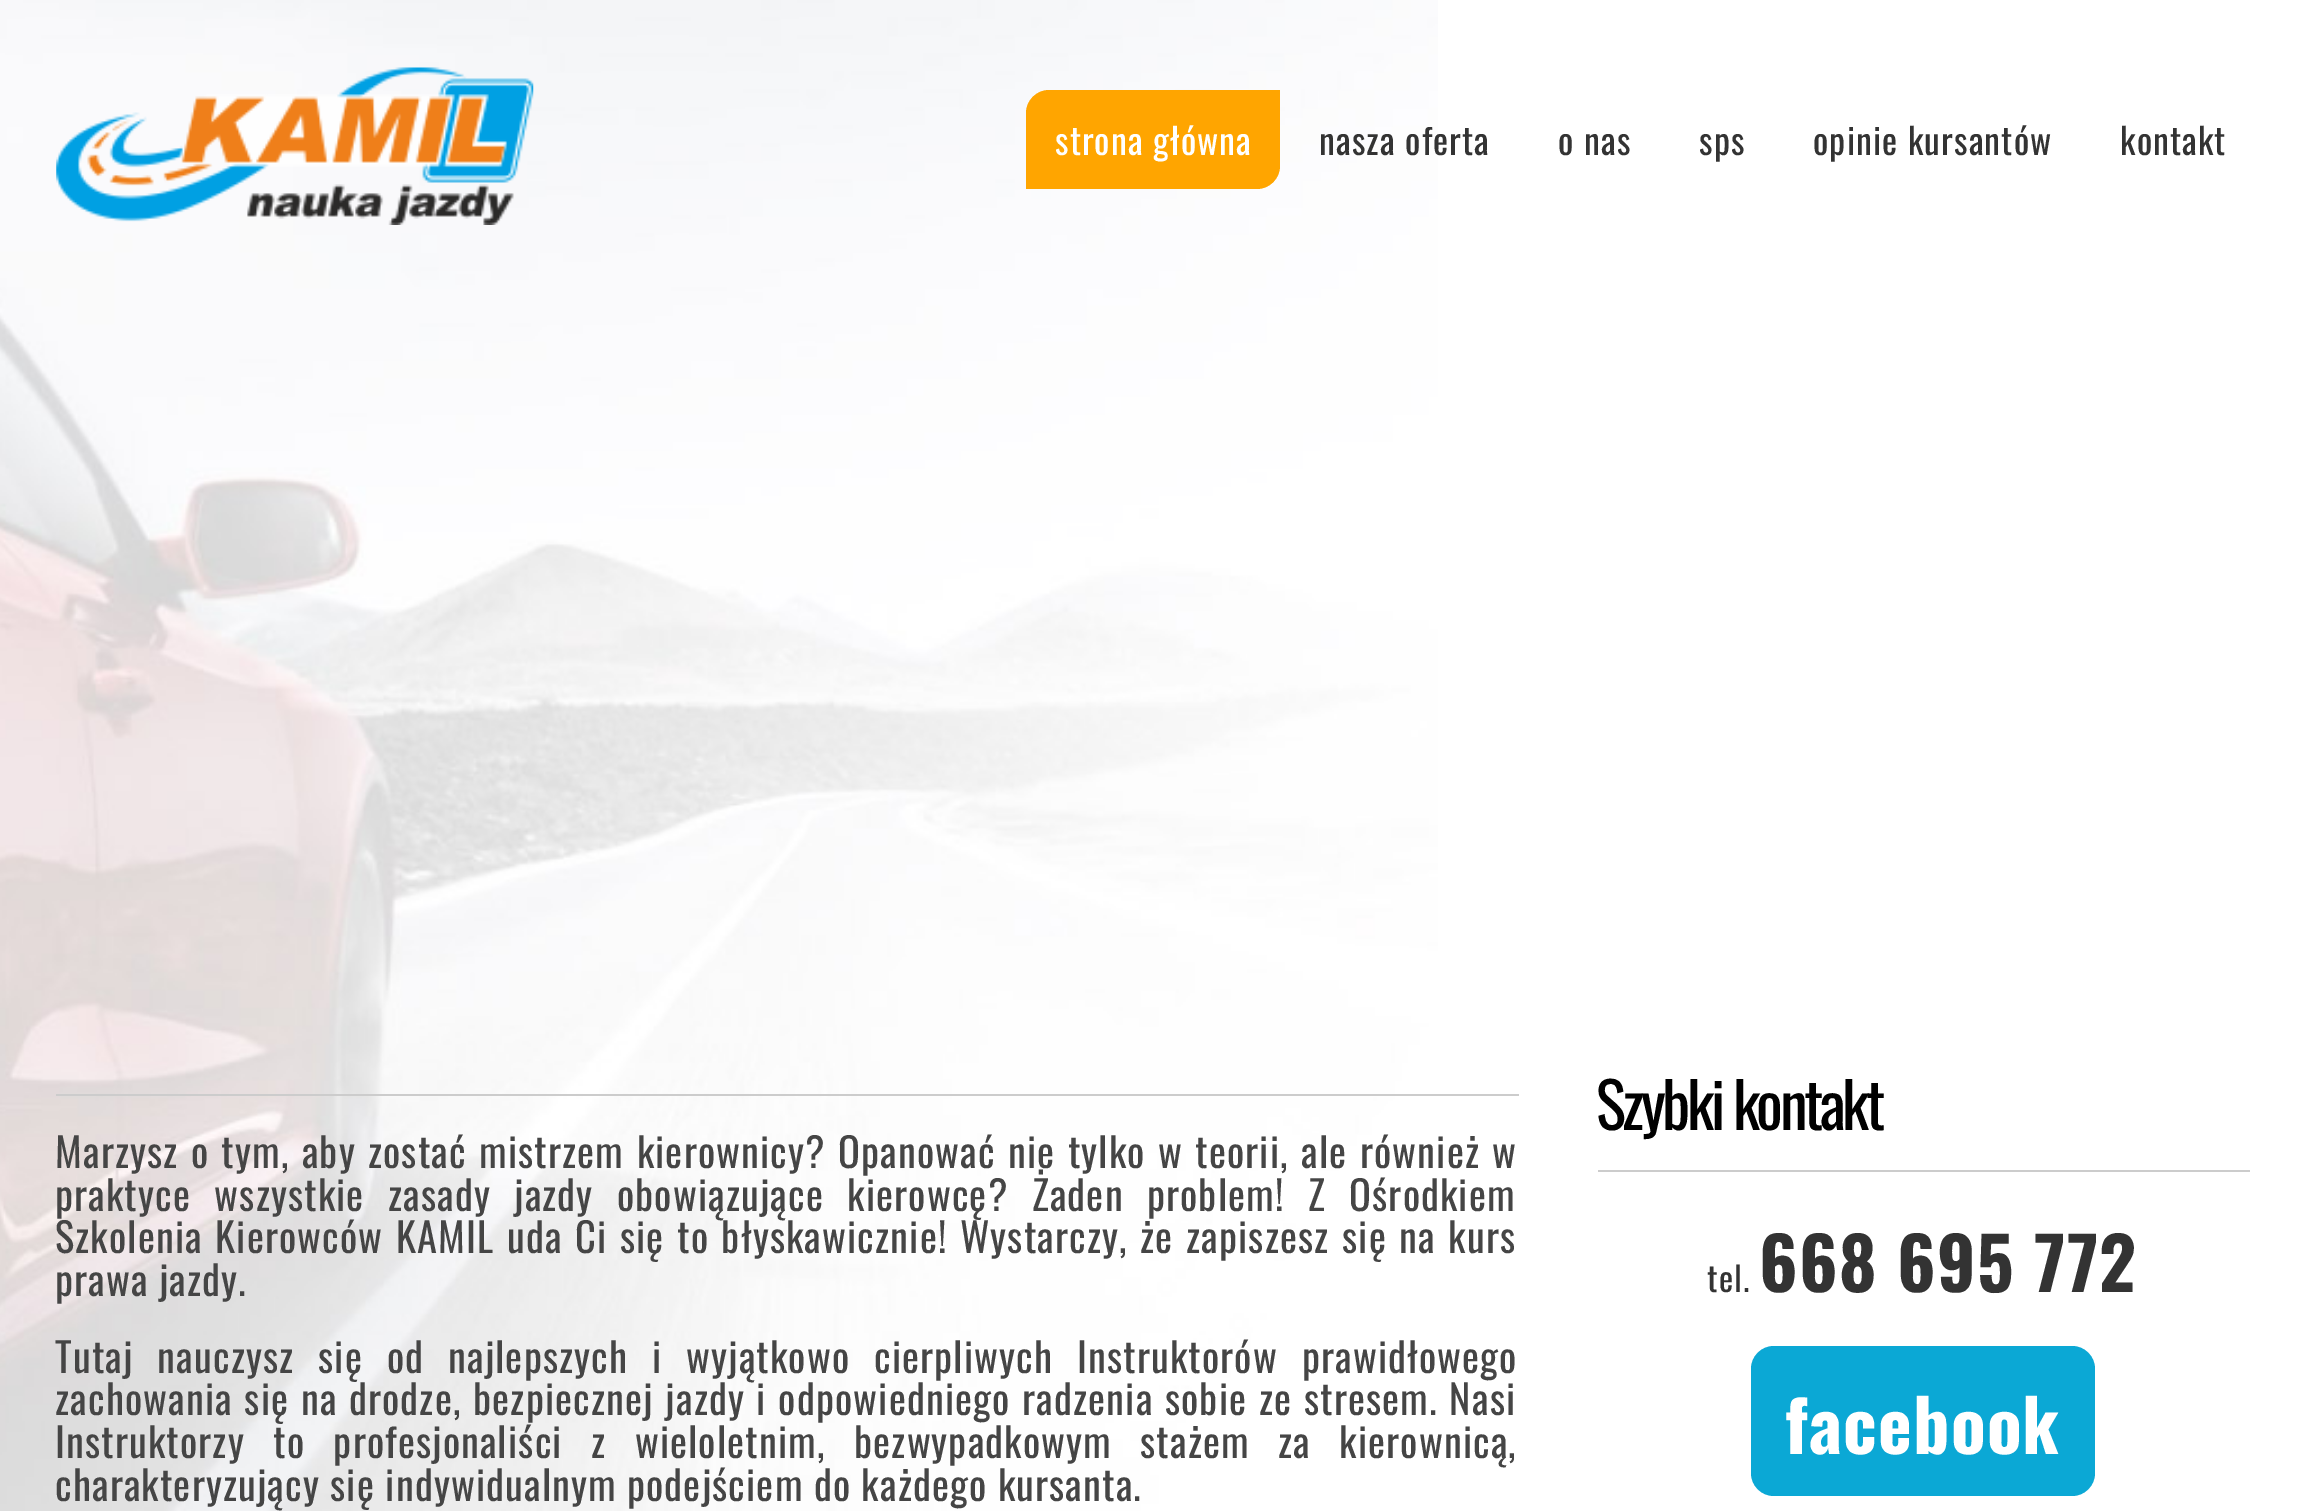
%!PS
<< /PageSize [2314 1511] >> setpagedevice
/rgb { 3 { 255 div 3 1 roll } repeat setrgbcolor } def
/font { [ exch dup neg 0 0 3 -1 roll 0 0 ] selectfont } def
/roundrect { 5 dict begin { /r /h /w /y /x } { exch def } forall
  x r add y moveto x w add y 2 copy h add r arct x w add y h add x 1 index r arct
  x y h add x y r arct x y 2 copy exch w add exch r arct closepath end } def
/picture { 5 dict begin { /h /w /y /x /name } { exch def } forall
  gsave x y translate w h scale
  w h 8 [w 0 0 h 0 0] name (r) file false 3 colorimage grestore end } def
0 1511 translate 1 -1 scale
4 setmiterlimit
255 255 255 rgb
0 0 2314 1511 rectfill
(img_01.rgb) 0 0 1438 1511 picture
(img_02.rgb) 56 67 478 158 picture
255 165 0 rgb
1049 90 moveto 231 0 rlineto 0 76 rlineto 0 12.5 -10.5 23 -23 23 rcurveto -231 0 rlineto 0 -76 rlineto 0 -12.5 10.5 -23 23 -23 rcurveto closepath fill
204 204 204 rgb
56 1094 1463 2 rectfill
1598 1170 652 2 rectfill
11 168 213 rgb
1751 1346 344 150 23 roundrect fill
/Oswald-Regular 36 font
255 255 255 rgb
1055 155 moveto 1.12 0 (strona główna) ashow
51 51 51 rgb
1319 155 moveto 1.12 0 (nasza oferta) ashow
1558 155 moveto 1.12 0 (o nas) ashow
1699 155 moveto 1.12 0 (sps) ashow
1813 155 moveto 1.12 0 (opinie kursantów) ashow
2120 155 moveto 1.12 0 (kontakt) ashow
/Oswald-Regular 40.5 font
69 69 69 rgb
55 1168 moveto 2 0 32 1.12 0 (Marzysz o tym, aby zostać mistrzem kierownicy? Opanować nie tylko w teorii, ale również w) awidthshow
55 1211 moveto 13 0 32 1.12 0 (praktyce wszystkie zasady jazdy obowiązujące kierowcę? Żaden problem! Z Ośrodkiem) awidthshow
55 1253 moveto 2.1 0 32 1.12 0 (Szkolenia Kierowców KAMIL uda Ci się to błyskawicznie! Wystarczy, że zapiszesz się na kurs) awidthshow
55 1296 moveto 1.12 0 (prawa jazdy.) ashow
55 1373 moveto 13.5 0 32 1.12 0 (Tutaj nauczysz się od najlepszych i wyjątkowo cierpliwych Instruktorów prawidłowego) awidthshow
55 1415 moveto 1.25 0 32 1.12 0 (zachowania się na drodze, bezpiecznej jazdy i odpowiedniego radzenia sobie ze stresem. Nasi) awidthshow
55 1458 moveto 18 0 32 1.12 0 (Instruktorzy to profesjonaliści z wieloletnim, bezwypadkowym stażem za kierownicą,) awidthshow
55 1501 moveto 1.12 0 (charakteryzujący się indywidualnym podejściem do każdego kursanta.) ashow
/Oswald-Regular 63 font
0 0 0 rgb
1596 1130 moveto -3.4 0 (Szybki kontakt) ashow
/Oswald-Regular 34 font
51 51 51 rgb
1707 1292 moveto 1.12 0 (tel.) ashow
/Oswald-Bold 72 font
1759 1292 moveto 1.12 0 (668 695 772) ashow
255 255 255 rgb
1785 1454 moveto 1.12 0 (facebook) ashow
showpage
